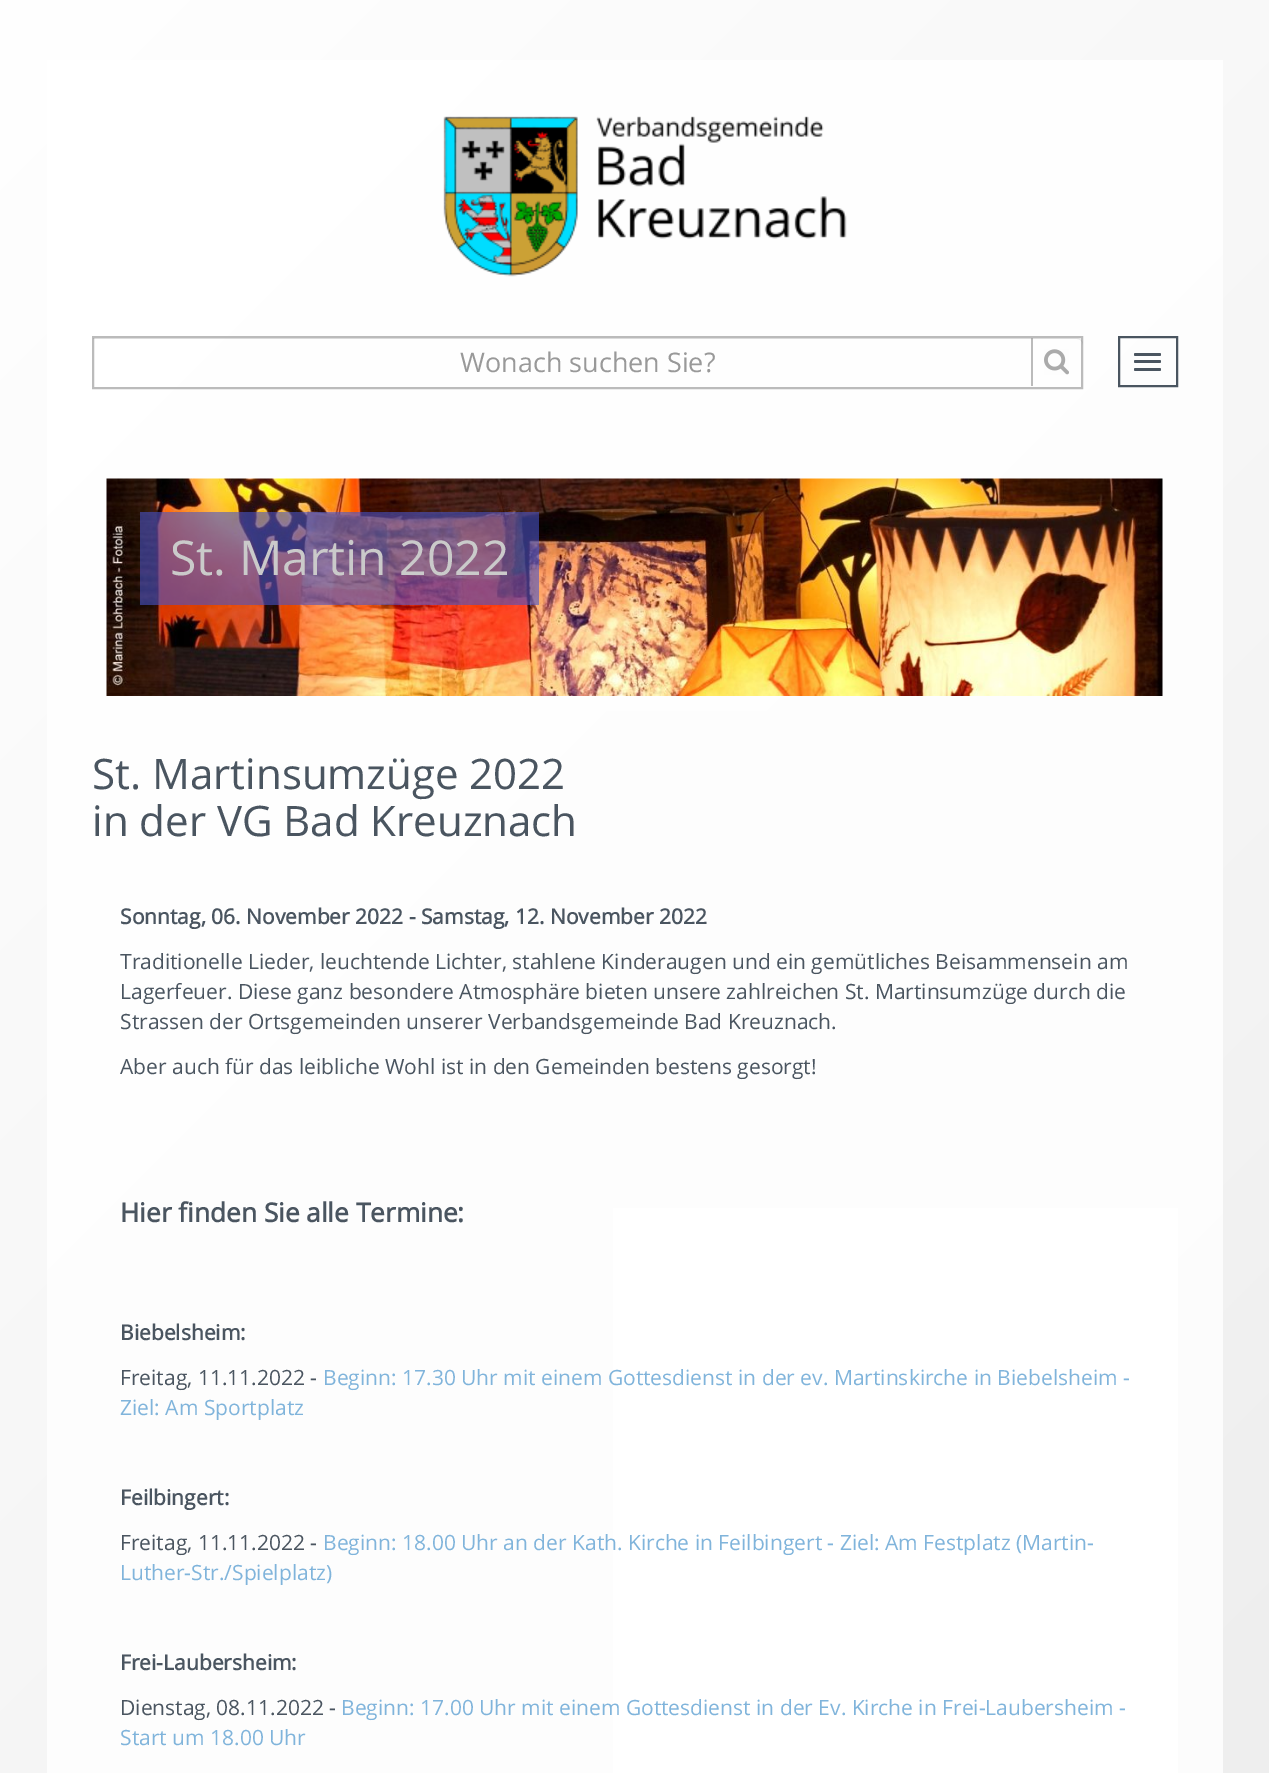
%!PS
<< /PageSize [1269 1773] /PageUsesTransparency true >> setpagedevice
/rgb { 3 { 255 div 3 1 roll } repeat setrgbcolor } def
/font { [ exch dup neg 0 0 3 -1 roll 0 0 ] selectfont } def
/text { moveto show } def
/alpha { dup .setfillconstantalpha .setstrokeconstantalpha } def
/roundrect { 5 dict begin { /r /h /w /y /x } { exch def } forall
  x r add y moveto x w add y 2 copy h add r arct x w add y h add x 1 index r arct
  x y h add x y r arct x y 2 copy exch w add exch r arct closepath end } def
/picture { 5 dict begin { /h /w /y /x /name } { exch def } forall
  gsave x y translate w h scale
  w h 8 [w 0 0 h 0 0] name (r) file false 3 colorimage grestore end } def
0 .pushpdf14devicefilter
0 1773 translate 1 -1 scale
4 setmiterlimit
255 255 255 rgb
0 0 1269 1773 rectfill
gsave 0 0 moveto 1269 0 rlineto 0 1773 rlineto -1269 0 rlineto closepath clip newpath
<< /ShadingType 2 /ColorSpace /DeviceRGB /Coords [-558 558 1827 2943] /Extend [true true] /Function << /FunctionType 2 /Domain [0 1] /C0 [1 1 1] /C1 [0.898 0.898 0.898] /N 1 >> >> shfill grestore
gsave 47 711 moveto 1176 0 rlineto 0 1062 rlineto -1176 0 rlineto closepath clip newpath
<< /ShadingType 2 /ColorSpace /DeviceRGB /Coords [-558 558 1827 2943] /Extend [true true] /Function << /FunctionType 2 /Domain [0 1] /C0 [1 1 1] /C1 [0.98 0.98 0.98] /N 1 >> >> shfill grestore
gsave 47 60 moveto 1176 0 rlineto 0 651 rlineto -1176 0 rlineto closepath clip newpath
<< /ShadingType 2 /ColorSpace /DeviceRGB /Coords [-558 558 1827 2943] /Extend [true true] /Function << /FunctionType 2 /Domain [0 1] /C0 [1 1 1] /C1 [0.98 0.98 0.98] /N 1 >> >> shfill grestore
(img_01.rgb) 443 116 404 161 picture
187 187 187 rgb
2 setlinewidth
93 337 989 51 rectstroke
1031 338 2 48 rectfill
0.07 alpha
0 0 0 rgb
93 339 moveto 984 0 rlineto 3 0 6 3 6 6 rcurveto 0 -1 rlineto 0 -3 -3 -6 -6 -6 rcurveto -984 0 rlineto closepath fill
1 alpha
(img_02.rgb) 1044 349 25 26 picture
74 85 96 rgb
1119 337 58 49 rectstroke
1134 353 27 3 1.5 roundrect fill
1134 360 27 3 1.5 roundrect fill
1134 368 27 3 1.5 roundrect fill
(img_03.rgb) 106 478 1057 218 picture
0.6 alpha
72 83 199 rgb
140 512 399 93 rectfill
1 alpha
255 255 255 rgb
613 1208 565 565 rectfill
/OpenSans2-Regular 27 font
153 153 153 rgb
(Wonach suchen Sie?) 460 372 text
/OpenSans-Regular 48 font
202 202 202 rgb
(St. Martin 2022) 170 575 text
/OpenSans-Regular 42 font
74 85 96 rgb
(St. Martinsumzüge 2022) 92 789 text
(in der VG Bad Kreuznach) 92 836 text
/OpenSans-Bold 21 font
(Sonntag, 06. November 2022 - Samstag, 12. November 2022) 120 924 text
/OpenSans-Regular 21 font
(Traditionelle Lieder, leuchtende Lichter, stahlene Kinderaugen und ein gemütliches Beisammensein am) 120 969 text
(Lagerfeuer. Diese ganz besondere Atmosphäre bieten unsere zahlreichen St. Martinsumzüge durch die) 120 999 text
(Strassen der Ortsgemeinden unserer Verbandsgemeinde Bad Kreuznach.) 120 1029 text
(Aber auch für das leibliche Wohl ist in den Gemeinden bestens gesorgt!) 120 1074 text
/OpenSans-Bold 26.25 font
(Hier finden Sie alle Termine:) 120 1222 text
/OpenSans-Bold 21 font
(Biebelsheim:) 120 1340 text
/OpenSans-Regular 21 font
(Freitag, 11.11.2022 -) 120 1385 text
128 180 219 rgb
(Beginn: 17.30 Uhr mit einem Gottesdienst in der ev. Martinskirche in Biebelsheim -) 323 1385 text
(Ziel: Am Sportplatz) 120 1415 text
/OpenSans-Bold 21 font
74 85 96 rgb
(Feilbingert:) 120 1505 text
/OpenSans-Regular 21 font
(Freitag, 11.11.2022 -) 120 1550 text
128 180 219 rgb
(Beginn: 18.00 Uhr an der Kath. Kirche in Feilbingert - Ziel: Am Festplatz \(Martin-) 323 1550 text
(Luther-Str./Spielplatz\)) 120 1580 text
/OpenSans-Bold 21 font
74 85 96 rgb
(Frei-Laubersheim:) 120 1670 text
/OpenSans-Regular 21 font
(Dienstag, 08.11.2022 -) 120 1715 text
128 180 219 rgb
(Beginn: 17.00 Uhr mit einem Gottesdienst in der Ev. Kirche in Frei-Laubersheim -) 341 1715 text
(Start um 18.00 Uhr) 120 1745 text
.poppdf14devicefilter showpage
